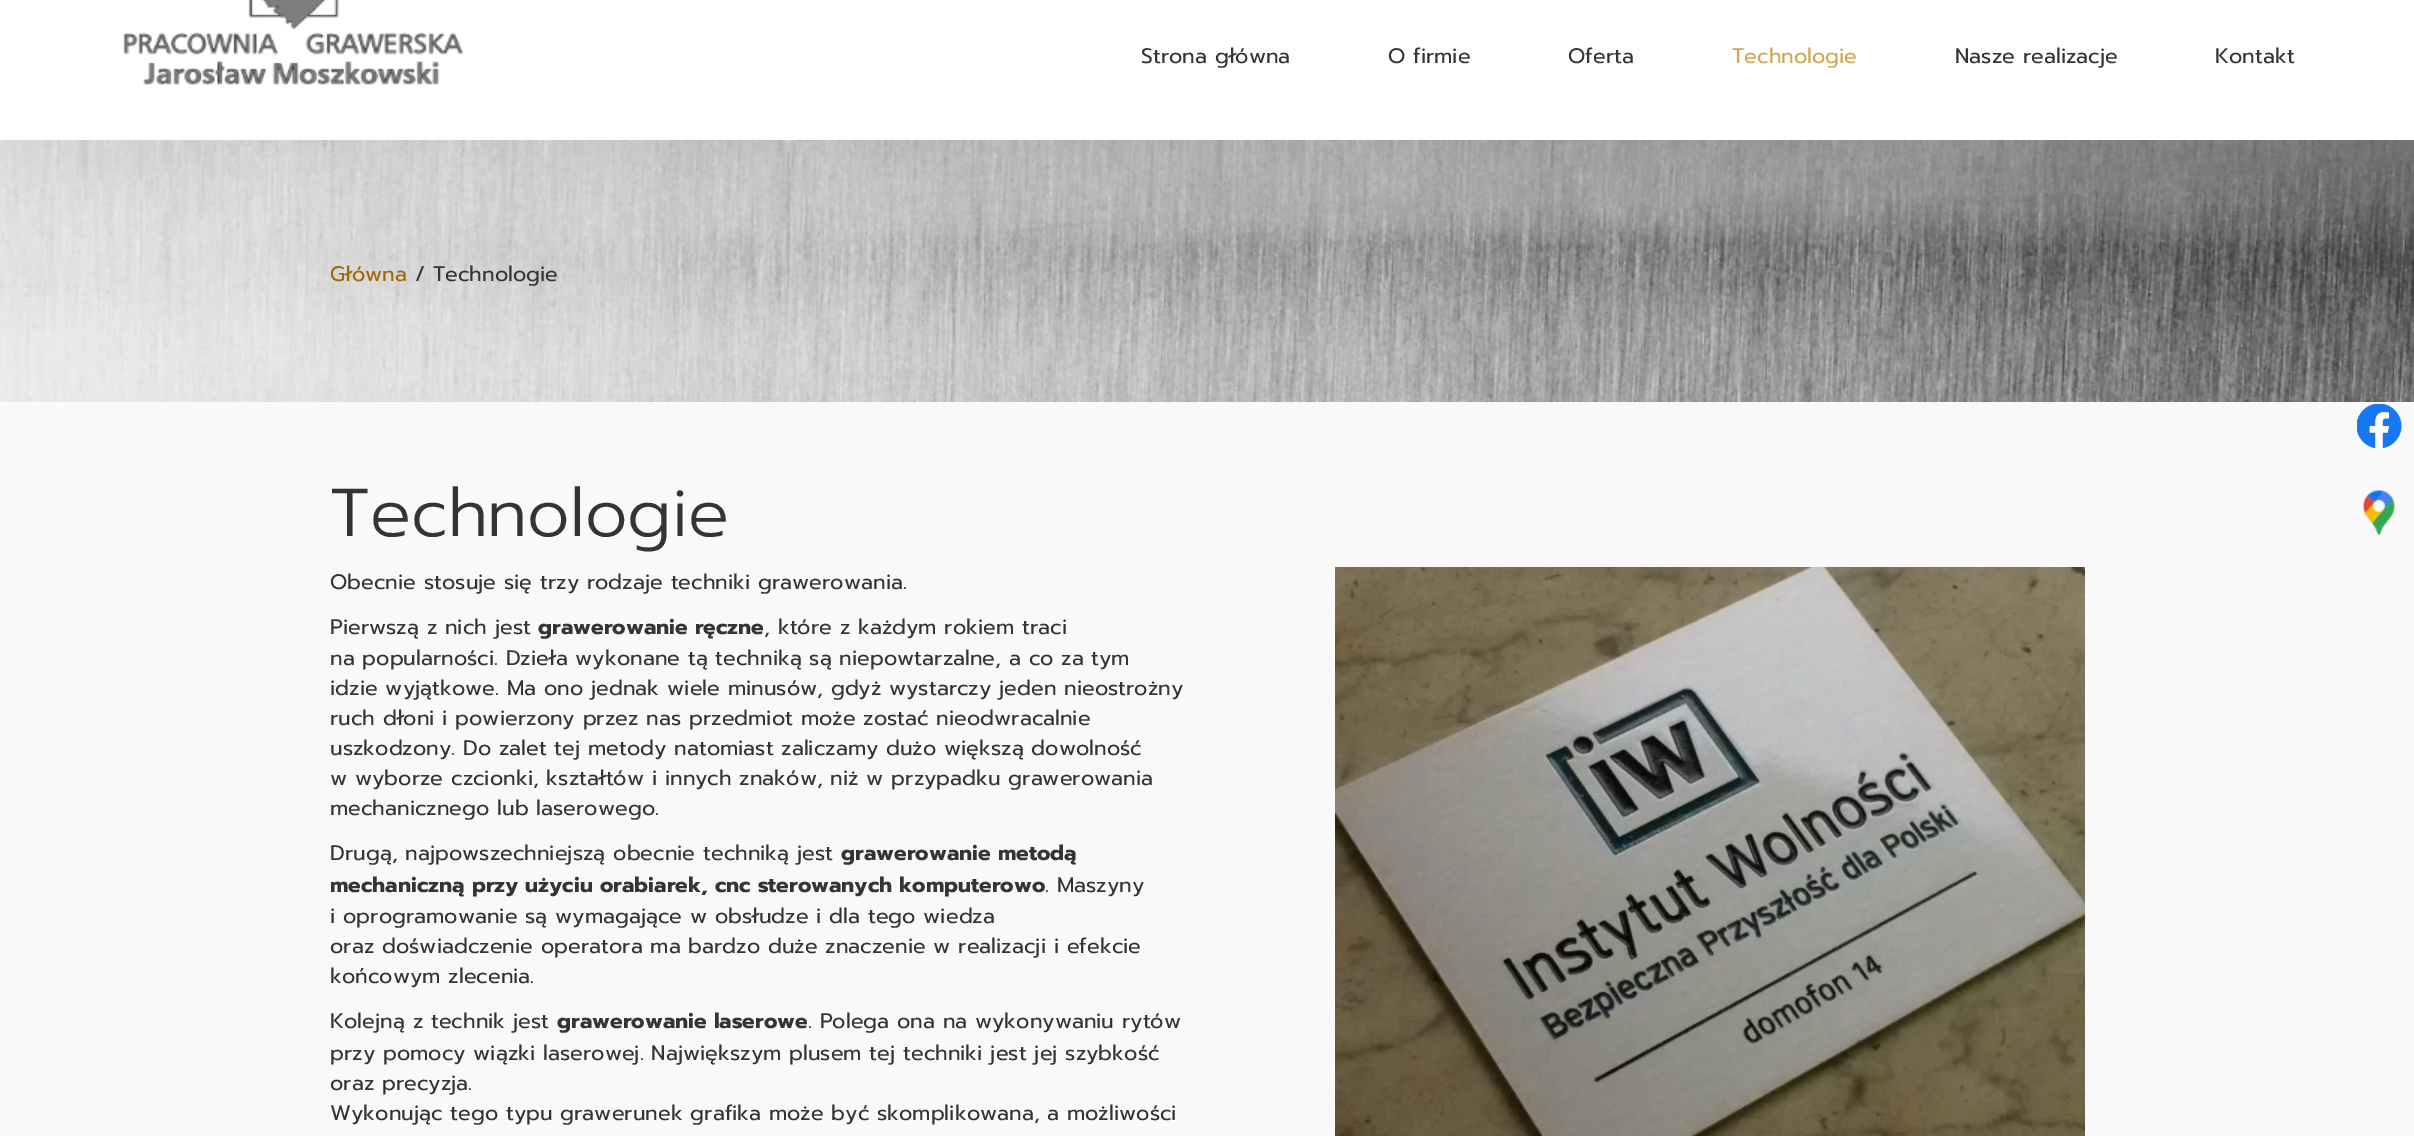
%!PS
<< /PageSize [2414 1136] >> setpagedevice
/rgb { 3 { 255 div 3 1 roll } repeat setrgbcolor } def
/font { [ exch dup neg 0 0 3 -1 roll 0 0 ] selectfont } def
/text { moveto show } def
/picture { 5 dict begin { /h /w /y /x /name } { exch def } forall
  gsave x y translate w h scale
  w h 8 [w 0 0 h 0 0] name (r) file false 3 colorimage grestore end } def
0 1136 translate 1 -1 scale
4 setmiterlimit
249 249 249 rgb
0 0 2414 1136 rectfill
255 255 255 rgb
0 0 2414 140 rectfill
(img_01.rgb) 123 0 341 86 picture
(img_02.rgb) 0 140 2414 262 picture
(img_03.rgb) 2357 404 45 45 picture
(img_04.rgb) 2363 490 32 46 picture
(img_05.rgb) 1335 567 750 569 picture
/Prompt-Regular 21 font
52 52 52 rgb
(Strona główna) 1141 63 text
(O firmie) 1388 63 text
(Oferta) 1568 63 text
210 166 79 rgb
(Technologie) 1732 63 text
52 52 52 rgb
(Nasze realizacje) 1955 63 text
(Kontakt) 2215 63 text
159 105 0 rgb
(Główna) 330 281 text
52 52 52 rgb
(/ Technologie) 415 281 text
/Prompt-Light 67.5 font
(Technologie) 330 536 text
/Prompt-Regular 21 font
(Obecnie stosuje się trzy rodzaje techniki grawerowania.) 330 589 text
(Pierwszą z nich jest) 330 634 text
/Prompt-Bold 21 font
(grawerowanie ręczne) 538 634 text
/Prompt-Regular 21 font
(, które z każdym rokiem traci) 764 634 text
(na popularności. Dzieła wykonane tą techniką są niepowtarzalne, a co za tym) 330 665 text
(idzie wyjątkowe. Ma ono jednak wiele minusów, gdyż wystarczy jeden nieostrożny) 330 695 text
(ruch dłoni i powierzony przez nas przedmiot może zostać nieodwracalnie) 330 725 text
(uszkodzony. Do zalet tej metody natomiast zaliczamy dużo większą dowolność) 330 755 text
(w wyborze czcionki, kształtów i innych znaków, niż w przypadku grawerowania) 330 785 text
(mechanicznego lub laserowego.) 330 815 text
(Drugą, najpowszechniejszą obecnie techniką jest) 330 860 text
/Prompt-Bold 21 font
(grawerowanie metodą) 841 860 text
(mechaniczną przy użyciu orabiarek, cnc sterowanych komputerowo) 330 892 text
/Prompt-Regular 21 font
(. Maszyny) 1045 892 text
(i oprogramowanie są wymagające w obsłudze i dla tego wiedza) 330 923 text
(oraz doświadczenie operatora ma bardzo duże znaczenie w realizacji i efekcie) 330 953 text
(końcowym zlecenia.) 330 983 text
(Kolejną z technik jest) 330 1028 text
/Prompt-Bold 21 font
(grawerowanie laserowe) 557 1028 text
/Prompt-Regular 21 font
(. Polega ona na wykonywaniu rytów) 808 1028 text
(przy pomocy wiązki laserowej. Największym plusem tej techniki jest jej szybkość) 330 1060 text
(oraz precyzja.) 330 1090 text
(Wykonując tego typu grawerunek grafika może być skomplikowana, a możliwości) 330 1120 text
showpage
